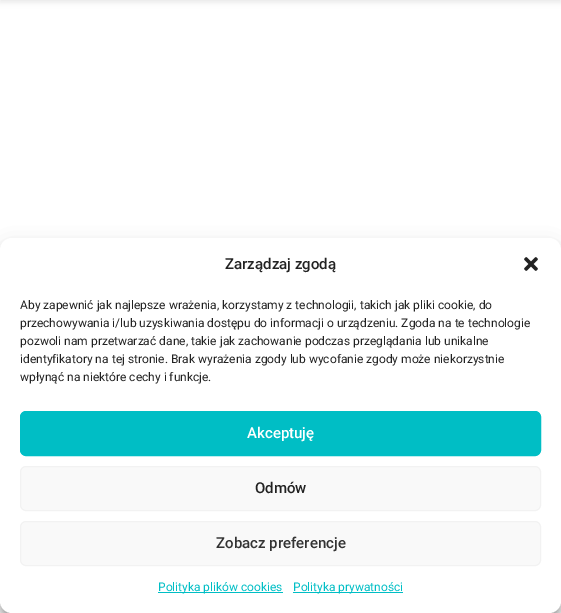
%!PS
<< /PageSize [561 613] /PageUsesTransparency true >> setpagedevice
/rgb { 3 { 255 div 3 1 roll } repeat setrgbcolor } def
/font { [ exch dup neg 0 0 3 -1 roll 0 0 ] selectfont } def
/text { moveto show } def
/alpha { dup .setfillconstantalpha .setstrokeconstantalpha } def
/roundrect { 5 dict begin { /r /h /w /y /x } { exch def } forall
  x r add y moveto x w add y 2 copy h add r arct x w add y h add x 1 index r arct
  x y h add x y r arct x y 2 copy exch w add exch r arct closepath end } def
/shadow { 12 dict begin { /a /b /q /h /w /y /x } { exch def } forall gsave /was 0 def
  9 -2 -9 { dup b mul 4 div /e exch def 1 sub .425 mul 2.718 exch exp 1 add a .99 .min exch div /now exch def
    1 1 now sub 1 was sub div sub alpha /was now def
    w h .min e 2 mul add 0 gt { x e sub y e sub w e 2 mul add h e 2 mul add
      q e add b .6 mul add w h .min 2 div e add .min 0 .max roundrect fill } if } for grestore end } def
/picture { 5 dict begin { /h /w /y /x /name } { exch def } forall
  gsave x y translate w h scale
  w h 8 [w 0 0 h 0 0] name (r) file false 3 colorimage grestore end } def
0 .pushpdf14devicefilter
0 613 translate 1 -1 scale
4 setmiterlimit
255 255 255 rgb
0 0 561 613 rectfill
0 0 0 rgb
0 -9 561 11 0 3 0.1 shadow
0 244 561 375 12 3 0.23 shadow
0 248 561 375 12 10 0.19 shadow
255 255 255 rgb
0 238 561 375 12 roundrect fill
(img_01.rgb) 524 257 14 14 picture
0 190 197 rgb
20.5 411.5 520 44 5.5 roundrect gsave fill grestore
stroke
249 249 249 rgb
20.5 466.5 520 44 5.5 roundrect gsave fill grestore
242 242 242 rgb
stroke
249 249 249 rgb
20.5 521.5 520 44 5.5 roundrect gsave fill grestore
242 242 242 rgb
stroke
0 190 197 rgb
158 592 125 1 rectfill
293 592 110 1 rectfill
/Roboto-Medium 15 font
34 34 34 rgb
(Zarządzaj zgodą) 225 269 text
/Roboto-Regular 12 font
(Aby zapewnić jak najlepsze wrażenia, korzystamy z technologii, takich jak pliki cookie, do) 20 309 text
(przechowywania i/lub uzyskiwania dostępu do informacji o urządzeniu. Zgoda na te technologie) 20 327 text
(pozwoli nam przetwarzać dane, takie jak zachowanie podczas przeglądania lub unikalne) 20 345 text
(identyfikatory na tej stronie. Brak wyrażenia zgody lub wycofanie zgody może niekorzystnie) 20 363 text
(wpłynąć na niektóre cechy i funkcje.) 20 381 text
/Roboto-Medium 15 font
255 255 255 rgb
(Akceptuję) 247 438 text
34 34 34 rgb
(Odmów) 255 493 text
51 51 51 rgb
(Zobacz preferencje) 216 548 text
/Roboto-Regular 12 font
0 190 197 rgb
(Polityka plików cookies) 158 591 text
(Polityka prywatności) 293 591 text
.poppdf14devicefilter showpage
